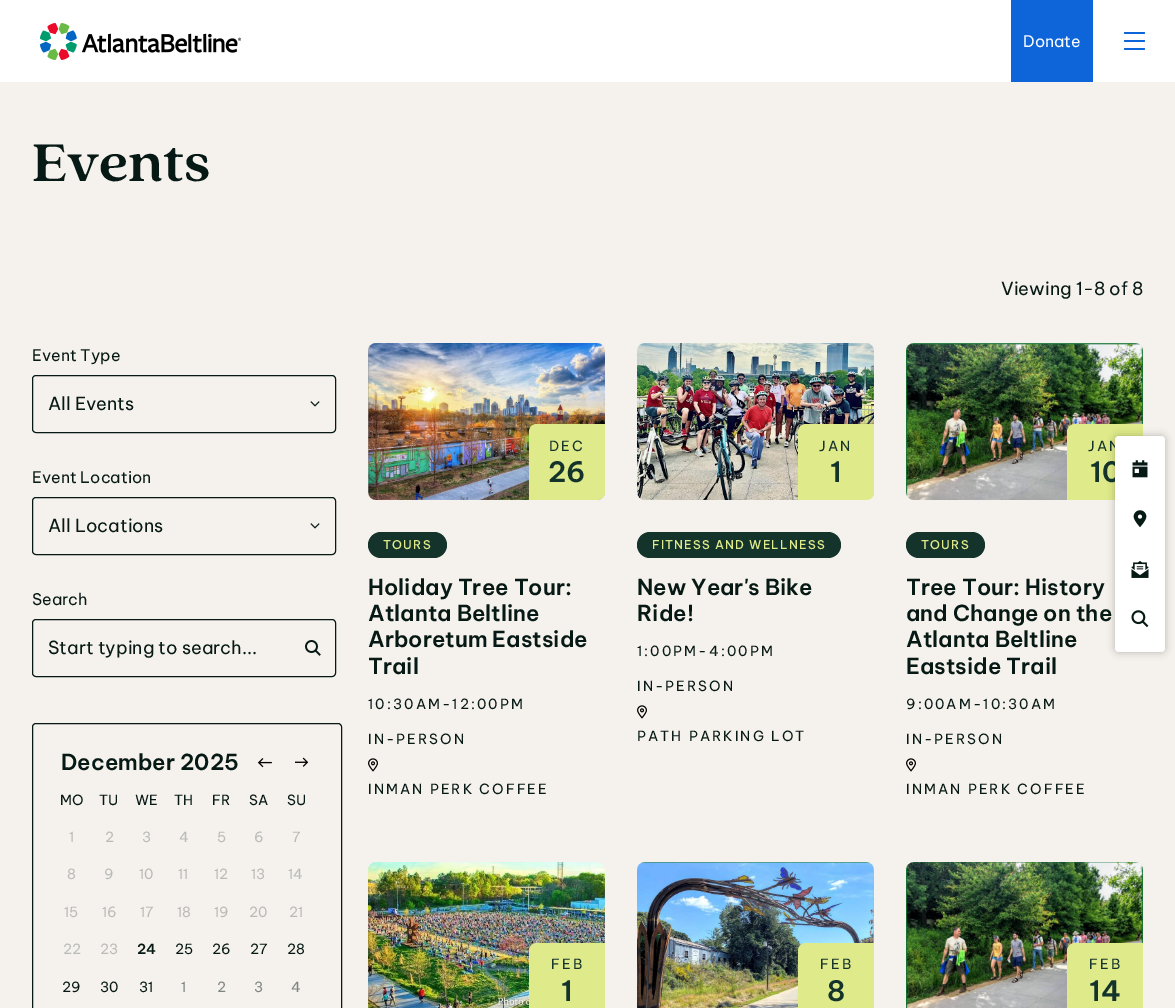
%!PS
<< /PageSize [1175 1008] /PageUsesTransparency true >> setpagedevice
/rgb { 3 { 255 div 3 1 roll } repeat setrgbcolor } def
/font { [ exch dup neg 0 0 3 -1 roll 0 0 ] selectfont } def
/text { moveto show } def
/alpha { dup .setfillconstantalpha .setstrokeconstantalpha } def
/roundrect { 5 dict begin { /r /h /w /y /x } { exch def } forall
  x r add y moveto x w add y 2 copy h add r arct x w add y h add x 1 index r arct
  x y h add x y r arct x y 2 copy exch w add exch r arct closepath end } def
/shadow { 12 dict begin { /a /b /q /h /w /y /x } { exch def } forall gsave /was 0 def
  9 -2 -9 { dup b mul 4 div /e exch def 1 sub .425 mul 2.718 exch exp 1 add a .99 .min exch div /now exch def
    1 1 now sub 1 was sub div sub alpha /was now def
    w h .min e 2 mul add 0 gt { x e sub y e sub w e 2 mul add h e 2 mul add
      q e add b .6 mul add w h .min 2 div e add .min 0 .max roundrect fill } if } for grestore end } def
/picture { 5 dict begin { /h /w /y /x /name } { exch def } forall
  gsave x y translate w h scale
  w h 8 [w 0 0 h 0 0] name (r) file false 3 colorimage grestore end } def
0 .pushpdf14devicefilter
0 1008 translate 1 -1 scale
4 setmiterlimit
255 255 255 rgb
0 0 1175 1008 rectfill
(img_01.rgb) 40 23 201 37 picture
13 101 217 rgb
1011 0 82 82 rectfill
1125 32 moveto 9 0 rlineto 0 2 rlineto -9 0 rlineto -0.5 0 -1 -0.5 -1 -1 rcurveto 0 -0.5 0.5 -1 1 -1 rcurveto closepath fill
1134 32 moveto 10 0 rlineto 0.5 0 1 0.5 1 1 rcurveto 0 0.5 -0.5 1 -1 1 rcurveto -10 0 rlineto closepath fill
1125 40 moveto 9 0 rlineto 0 2 rlineto -9 0 rlineto -0.5 0 -1 -0.5 -1 -1 rcurveto 0 -0.5 0.5 -1 1 -1 rcurveto closepath fill
1134 40 moveto 10 0 rlineto 0.5 0 1 0.5 1 1 rcurveto 0 0.5 -0.5 1 -1 1 rcurveto -10 0 rlineto closepath fill
1125 48 moveto 9 0 rlineto 0 2 rlineto -9 0 rlineto -0.5 0 -1 -0.5 -1 -1 rcurveto 0 -0.5 0.5 -1 1 -1 rcurveto closepath fill
1134 48 moveto 10 0 rlineto 0.5 0 1 0.5 1 1 rcurveto 0 0.5 -0.5 1 -1 1 rcurveto -10 0 rlineto closepath fill
245 241 237 rgb
0 82 1175 926 rectfill
7 25 20 rgb
32.5 375.5 303 57 3.5 roundrect stroke
(img_02.rgb) 310 401 10 6 picture
32.5 497.5 303 57 3.5 roundrect stroke
(img_02.rgb) 310 523 10 6 picture
32.5 619.5 303 57 3.5 roundrect stroke
(img_03.rgb) 305 640 16 16 picture
32.5 723.5 309 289 3.5 roundrect stroke
(img_04.rgb) 257 758 15 10 picture
(img_05.rgb) 295 757 14 10 picture
(img_06.rgb) 368 343 237 157 picture
223 234 138 rgb
537 424 moveto 68 0 rlineto 0 68 rlineto 0 4.5 -3.5 8 -8 8 rcurveto -68 0 rlineto 0 -68 rlineto 0 -4.5 3.5 -8 8 -8 rcurveto closepath fill
20 51 43 rgb
368 532 79 26 13 roundrect fill
(img_07.rgb) 368 758 10 14 picture
(img_08.rgb) 637 343 237 157 picture
223 234 138 rgb
806 424 moveto 68 0 rlineto 0 68 rlineto 0 4.5 -3.5 8 -8 8 rcurveto -68 0 rlineto 0 -68 rlineto 0 -4.5 3.5 -8 8 -8 rcurveto closepath fill
20 51 43 rgb
637 532 204 26 13 roundrect fill
(img_07.rgb) 637 705 10 14 picture
(img_09.rgb) 906 343 237 157 picture
223 234 138 rgb
1075 424 moveto 68 0 rlineto 0 68 rlineto 0 4.5 -3.5 8 -8 8 rcurveto -68 0 rlineto 0 -68 rlineto 0 -4.5 3.5 -8 8 -8 rcurveto closepath fill
20 51 43 rgb
906 532 79 26 13 roundrect fill
(img_07.rgb) 906 758 10 14 picture
(img_10.rgb) 368 862 237 146 picture
223 234 138 rgb
537 943 moveto 68 0 rlineto 0 65 rlineto 0 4.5 -3.5 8 -8 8 rcurveto -68 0 rlineto 0 -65 rlineto 0 -4.5 3.5 -8 8 -8 rcurveto closepath fill
(img_11.rgb) 637 862 237 146 picture
806 943 moveto 68 0 rlineto 0 65 rlineto 0 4.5 -3.5 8 -8 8 rcurveto -68 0 rlineto 0 -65 rlineto 0 -4.5 3.5 -8 8 -8 rcurveto closepath fill
(img_12.rgb) 906 862 237 146 picture
1075 943 moveto 68 0 rlineto 0 65 rlineto 0 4.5 -3.5 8 -8 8 rcurveto -68 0 rlineto 0 -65 rlineto 0 -4.5 3.5 -8 8 -8 rcurveto closepath fill
0 0 0 rgb
1115 436 50 216 4 4 0.25 shadow
/BeVietnamPro-Regular 16 font
255 255 255 rgb
(Donate) 1023 47 text
/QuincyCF-Bold 59 font
7 25 20 rgb
32 181 moveto -0.5 0 (Events) ashow
/BeVietnamPro-Regular 18 font
(Viewing 1-8 of 8) 1001 295 text
/BeVietnamPro-Regular 16 font
(Event Type) 32 361 text
/BeVietnamPro-Regular 18 font
(All Events) 48 410 text
/BeVietnamPro-Regular 16 font
(Event Location) 32 483 text
/BeVietnamPro-Regular 18 font
(All Locations) 48 532 text
/BeVietnamPro-Regular 16 font
(Search) 32 605 text
/BeVietnamPro-Regular 18 font
(Start typing to search...) 48 654 text
/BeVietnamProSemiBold-SemiBold 22 font
(December 2025) 61 770 text
/BeVietnamPro-Regular 14 font
(MO) 60 805 text
(TU) 99 805 text
(WE) 135 805 text
(TH) 174 805 text
(FR) 212 805 text
(SA) 249 805 text
(SU) 287 805 text
186 187 183 rgb
(1) 69 842 text
(2) 105 842 text
(3) 142 842 text
(4) 179 842 text
(5) 217 842 text
(6) 254 842 text
(7) 292 842 text
(8) 67 879 text
(9) 104 879 text
(10) 139 879 text
(11) 178 879 text
(12) 214 879 text
(13) 251 879 text
(14) 288 879 text
(15) 64 917 text
(16) 102 917 text
(17) 140 917 text
(18) 177 917 text
(19) 214 917 text
(20) 249 917 text
(21) 289 917 text
(22) 63 954 text
(23) 100 954 text
/BeVietnamProSemiBold-SemiBold 14 font
7 25 20 rgb
(24) 137 954 text
/BeVietnamPro-Regular 14 font
(25) 175 954 text
(26) 212 954 text
(27) 250 954 text
(28) 287 954 text
(29) 62 992 text
(30) 100 992 text
(31) 139 992 text
126 133 129 rgb
(1) 181 992 text
(2) 217 992 text
(3) 254 992 text
(4) 291 992 text
20 51 43 rgb
549 451 moveto 2 0 (DEC) ashow
/BeVietnamProSemiBold-SemiBold 28 font
(26) 548 482 text
/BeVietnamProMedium-Medium 12 font
223 234 138 rgb
383 549 moveto 1.2 0 (TOURS) ashow
/BeVietnamProSemiBold-SemiBold 22 font
7 25 20 rgb
(Holiday Tree Tour:) 368 595 text
(Atlanta Beltline) 368 621 text
(Arboretum Eastside) 368 647 text
(Trail) 368 674 text
/BeVietnamPro-Regular 14 font
368 709 moveto 2 0 (10:30AM-12:00PM) ashow
368 744 moveto 2 0 (IN-PERSON) ashow
368 794 moveto 2 0 (INMAN PERK COFFEE) ashow
20 51 43 rgb
819 451 moveto 2 0 (JAN) ashow
/BeVietnamProSemiBold-SemiBold 28 font
(1) 830 482 text
/BeVietnamProMedium-Medium 12 font
223 234 138 rgb
652 549 moveto 1.2 0 (FITNESS AND WELLNESS) ashow
/BeVietnamProSemiBold-SemiBold 22 font
7 25 20 rgb
(New Year's Bike) 637 595 text
(Ride!) 637 621 text
/BeVietnamPro-Regular 14 font
637 656 moveto 2 0 (1:00PM-4:00PM) ashow
637 691 moveto 2 0 (IN-PERSON) ashow
637 741 moveto 2 0 (PATH PARKING LOT) ashow
20 51 43 rgb
1088 451 moveto 2 0 (JAN) ashow
/BeVietnamProSemiBold-SemiBold 28 font
(10) 1090 482 text
/BeVietnamProMedium-Medium 12 font
223 234 138 rgb
921 549 moveto 1.2 0 (TOURS) ashow
/BeVietnamProSemiBold-SemiBold 22 font
7 25 20 rgb
(Tree Tour: History) 906 595 text
(and Change on the) 906 621 text
(Atlanta Beltline) 906 647 text
(Eastside Trail) 906 674 text
/BeVietnamPro-Regular 14 font
906 709 moveto 2 0 (9:00AM-10:30AM) ashow
906 744 moveto 2 0 (IN-PERSON) ashow
906 794 moveto 2 0 (INMAN PERK COFFEE) ashow
20 51 43 rgb
551 969 moveto 2 0 (FEB) ashow
/BeVietnamProSemiBold-SemiBold 28 font
(1) 561 1001 text
/BeVietnamPro-Regular 14 font
820 969 moveto 2 0 (FEB) ashow
/BeVietnamProSemiBold-SemiBold 28 font
(8) 827 1001 text
/BeVietnamPro-Regular 14 font
1089 969 moveto 2 0 (FEB) ashow
/BeVietnamProSemiBold-SemiBold 28 font
(14) 1089 1001 text
255 255 255 rgb
1115 436 50 216 4 roundrect fill
(img_13.rgb) 1132 460 16 18 picture
(img_14.rgb) 1133 510 14 18 picture
(img_15.rgb) 1131 561 18 17 picture
(img_16.rgb) 1131 610 18 18 picture
.poppdf14devicefilter showpage
